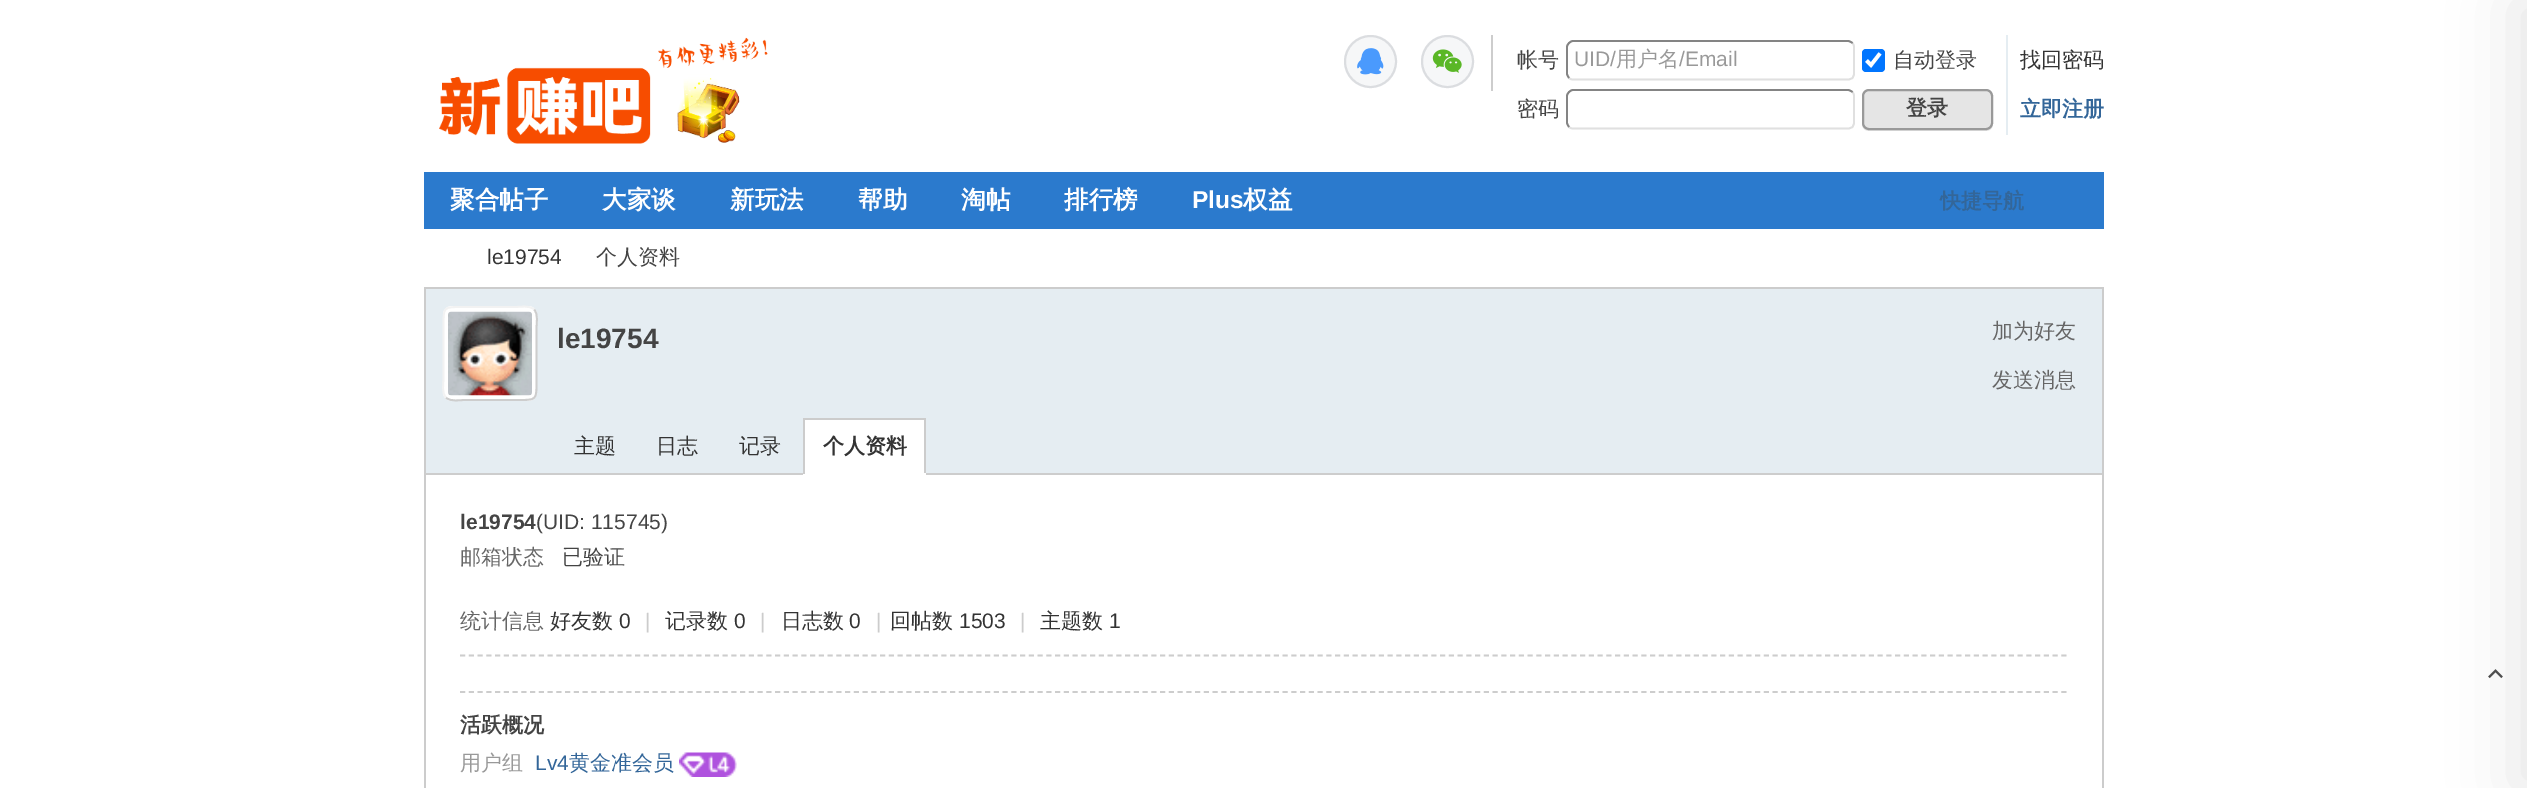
%!PS
<< /PageSize [2527 788] /PageUsesTransparency true >> setpagedevice
/rgb { 3 { 255 div 3 1 roll } repeat setrgbcolor } def
/font { [ exch dup neg 0 0 3 -1 roll 0 0 ] selectfont } def
/text { moveto show } def
/alpha { dup .setfillconstantalpha .setstrokeconstantalpha } def
/circle { newpath 0 360 arc closepath } def
/roundrect { 5 dict begin { /r /h /w /y /x } { exch def } forall
  x r add y moveto x w add y 2 copy h add r arct x w add y h add x 1 index r arct
  x y h add x y r arct x y 2 copy exch w add exch r arct closepath end } def
/shadow { 12 dict begin { /a /b /q /h /w /y /x } { exch def } forall gsave /was 0 def
  9 -2 -9 { dup b mul 4 div /e exch def 1 sub .425 mul 2.718 exch exp 1 add a .99 .min exch div /now exch def
    1 1 now sub 1 was sub div sub alpha /was now def
    w h .min e 2 mul add 0 gt { x e sub y e sub w e 2 mul add h e 2 mul add
      q e add b .6 mul add w h .min 2 div e add .min 0 .max roundrect fill } if } for grestore end } def
/picture { 5 dict begin { /h /w /y /x /name } { exch def } forall
  gsave x y translate w h scale
  w h 8 [w 0 0 h 0 0] name (r) file false 3 colorimage grestore end } def
0 .pushpdf14devicefilter
0 788 translate 1 -1 scale
4 setmiterlimit
255 255 255 rgb
0 0 2527 788 rectfill
(img_01.rgb) 439 37 329 107 picture
205 205 205 rgb
1491 35 2 56 rectfill
246 247 248 rgb
1370.5 61.5 26.5 circle fill
0.11 alpha
0 10 32 rgb
2 setlinewidth
1370.5 61.5 25.5 circle stroke
1 alpha
(img_02.rgb) 1357 48 27 27 picture
246 247 248 rgb
1447.5 61.5 26.5 circle fill
0.11 alpha
0 10 32 rgb
1447.5 61.5 25.5 circle stroke
1 alpha
(img_03.rgb) 1432 49 30 24 picture
224 224 224 rgb
1.8 setlinewidth
1852.5 43 moveto 1 1 1.5 2.5 1.5 4 rcurveto 0 26.5 rlineto 0 1.5 -0.5 3 -1.5 4.5 rcurveto -1.5 1 -3 1.5 -4.5 1.5 rcurveto -275 0 rlineto -1.5 0 -3 -0.5 -4 -1.5 rcurveto stroke
132 132 132 rgb
1569 78 moveto -1 -1.5 -2 -3 -2 -4.5 rcurveto 0 -26.5 rlineto 0 -1.5 1 -3 2 -4 rcurveto 1 -1 2.5 -2 4 -2 rcurveto 275 0 rlineto 1.5 0 3 1 4.5 2 rcurveto stroke
0 117 255 rgb
1862 49 23 23 4 roundrect fill
255 255 255 rgb
3.6 setlinewidth
1866.5 60.5 moveto 4.5 4.5 rlineto 9 -11.5 rlineto stroke
224 224 224 rgb
1.8 setlinewidth
1852.5 92 moveto 1 1 1.5 2.5 1.5 4 rcurveto 0 26.5 rlineto 0 1.5 -0.5 3 -1.5 4.5 rcurveto -1.5 1 -3 1.5 -4.5 1.5 rcurveto -275 0 rlineto -1.5 0 -3 -0.5 -4 -1.5 rcurveto stroke
132 132 132 rgb
1569 127 moveto -1 -1.5 -2 -3 -2 -4.5 rcurveto 0 -26.5 rlineto 0 -1.5 1 -3 2 -4 rcurveto 1 -1 2.5 -2 4 -2 rcurveto 275 0 rlineto 1.5 0 3 1 4.5 2 rcurveto stroke
229 237 242 rgb
2006 35 2 100 rectfill
229 229 229 rgb
1862 122 moveto 0 2 rlineto 0 4 3 7 7 7 rcurveto 117 0 rlineto 4 0 7 -3 7 -7 rcurveto -1 3 -4 6 -7 6 rcurveto -117 0 rlineto -4 0 -7 -4 -7 -8 rcurveto closepath fill
1863 90 129 39 6 roundrect gsave fill grestore
153 153 153 rgb
2 setlinewidth
stroke
43 122 205 rgb
424 172 1680 57 rectfill
(img_04.rgb) 2488 669 15 10 picture
181 181 181 rgb
2513 0 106 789 0 30.5 0.32 shadow
229 237 242 rgb
426 289 1676 184 rectfill
204 204 204 rgb
424 287 1680 2 rectfill
2102 287 2 501 rectfill
424 287 2 187 rectfill
255 255 255 rgb
443 306 94 95 9 roundrect fill
205 205 205 rgb
1.8 setlinewidth
534 309.5 moveto 4.5 4 2.5 14.5 2.5 18.5 rcurveto 0 51 rlineto 0 22 1 21 -21 21 rcurveto -51 0 rlineto -4 0 -14.5 2 -18.5 -2.5 rcurveto stroke
242 242 242 rgb
446 397.5 moveto -4.5 -4 -2.5 -14.5 -2.5 -18.5 rcurveto 0 -51 rlineto 0 -22 -1 -21 21 -21 rcurveto 51 0 rlineto 4 0 14.5 -2 18.5 2.5 rcurveto stroke
(img_05.rgb) 448 311 84 85 picture
205 205 205 rgb
425 473 1677 2 rectfill
255 255 255 rgb
805 420 119 53 rectfill
204 204 204 rgb
803 418 123 2 rectfill
924 418 2 56 rectfill
255 255 255 rgb
803 473 123 2 rectfill
204 204 204 rgb
803 418 2 56 rectfill
424 474 2 314 rectfill
205 205 205 rgb
[5.25 3.5] 0 setdash
460 692 moveto 1607 0 rlineto stroke
460 655.5 moveto 1607 0 rlineto stroke
(img_06.rgb) 679 752 58 25 picture
/WenQuanYiZenHei-Medium 21 font
68 68 68 rgb
(帐号) 1517 67 text
/LiberationSans-Regular 21 font
153 153 153 rgb
(UID/) 1574 66 text
/WenQuanYiZenHei-Medium 21 font
(用户名) 1616 66 text
/LiberationSans-Regular 21 font
(/Email) 1679 66 text
/WenQuanYiZenHei-Medium 21 font
68 68 68 rgb
(自动登录) 1893 67 text
51 51 51 rgb
(找回密码) 2020 67 text
68 68 68 rgb
(密码) 1517 116 text
/WenQuanYiZenHei-Bold 21 font
(登录) 1906 115 text
51 102 153 rgb
(立即注册) 2020 116 text
/WenQuanYiZenHei-Bold 24.5 font
255 255 255 rgb
(聚合帖子) 450 208 text
(大家谈) 602 208 text
(新玩法) 730 208 text
(帮助) 858 208 text
(淘帖) 961 208 text
(排行榜) 1064 208 text
/LiberationSans-Bold 24.5 font
(Plus) 1192 208 text
/WenQuanYiZenHei-Bold 24.5 font
(权益) 1243 208 text
/WenQuanYiZenHei-Bold 21 font
51 102 153 rgb
(快捷导航) 1940 208 text
/LiberationSans-Regular 21 font
51 51 51 rgb
(le19754) 487 264 text
/WenQuanYiZenHei-Medium 21 font
68 68 68 rgb
(个人资料) 596 264 text
/LiberationSans-Bold 28 font
(le19754) 557 348 text
/WenQuanYiZenHei-Medium 21 font
102 102 102 rgb
(加为好友) 1992 338 text
(发送消息) 1992 387 text
51 51 51 rgb
(主题) 574 453 text
(日志) 656 453 text
(记录) 739 453 text
/WenQuanYiZenHei-Bold 21 font
(个人资料) 823 453 text
/LiberationSans-Bold 21 font
68 68 68 rgb
(le19754) 460 529 text
/LiberationSans-Regular 21 font
(\(UID: 115745\)) 536 529 text
/WenQuanYiZenHei-Medium 21 font
102 102 102 rgb
(邮箱状态) 460 564 text
68 68 68 rgb
(已验证) 562 564 text
102 102 102 rgb
(统计信息) 460 628 text
51 51 51 rgb
(好友数) 550 628 text
/LiberationSans-Regular 21 font
(0) 619 628 text
204 204 204 rgb
(|) 645 628 text
/WenQuanYiZenHei-Medium 21 font
51 51 51 rgb
(记录数) 665 628 text
/LiberationSans-Regular 21 font
(0) 734 628 text
204 204 204 rgb
(|) 760 628 text
/WenQuanYiZenHei-Medium 21 font
51 51 51 rgb
(日志数) 781 628 text
/LiberationSans-Regular 21 font
(0) 849 628 text
204 204 204 rgb
(|) 876 628 text
/WenQuanYiZenHei-Medium 21 font
51 51 51 rgb
(回帖数) 890 628 text
/LiberationSans-Regular 21 font
(1503) 959 628 text
204 204 204 rgb
(|) 1020 628 text
/WenQuanYiZenHei-Medium 21 font
51 51 51 rgb
(主题数) 1040 628 text
/LiberationSans-Regular 21 font
(1) 1109 628 text
/WenQuanYiZenHei-Bold 21 font
68 68 68 rgb
(活跃概况) 460 732 text
/WenQuanYiZenHei-Medium 21 font
153 153 153 rgb
(用户组) 460 770 text
/LiberationSans-Regular 21 font
51 102 153 rgb
(Lv4) 535 770 text
/WenQuanYiZenHei-Medium 21 font
(黄金准会员) 569 770 text
.poppdf14devicefilter showpage
